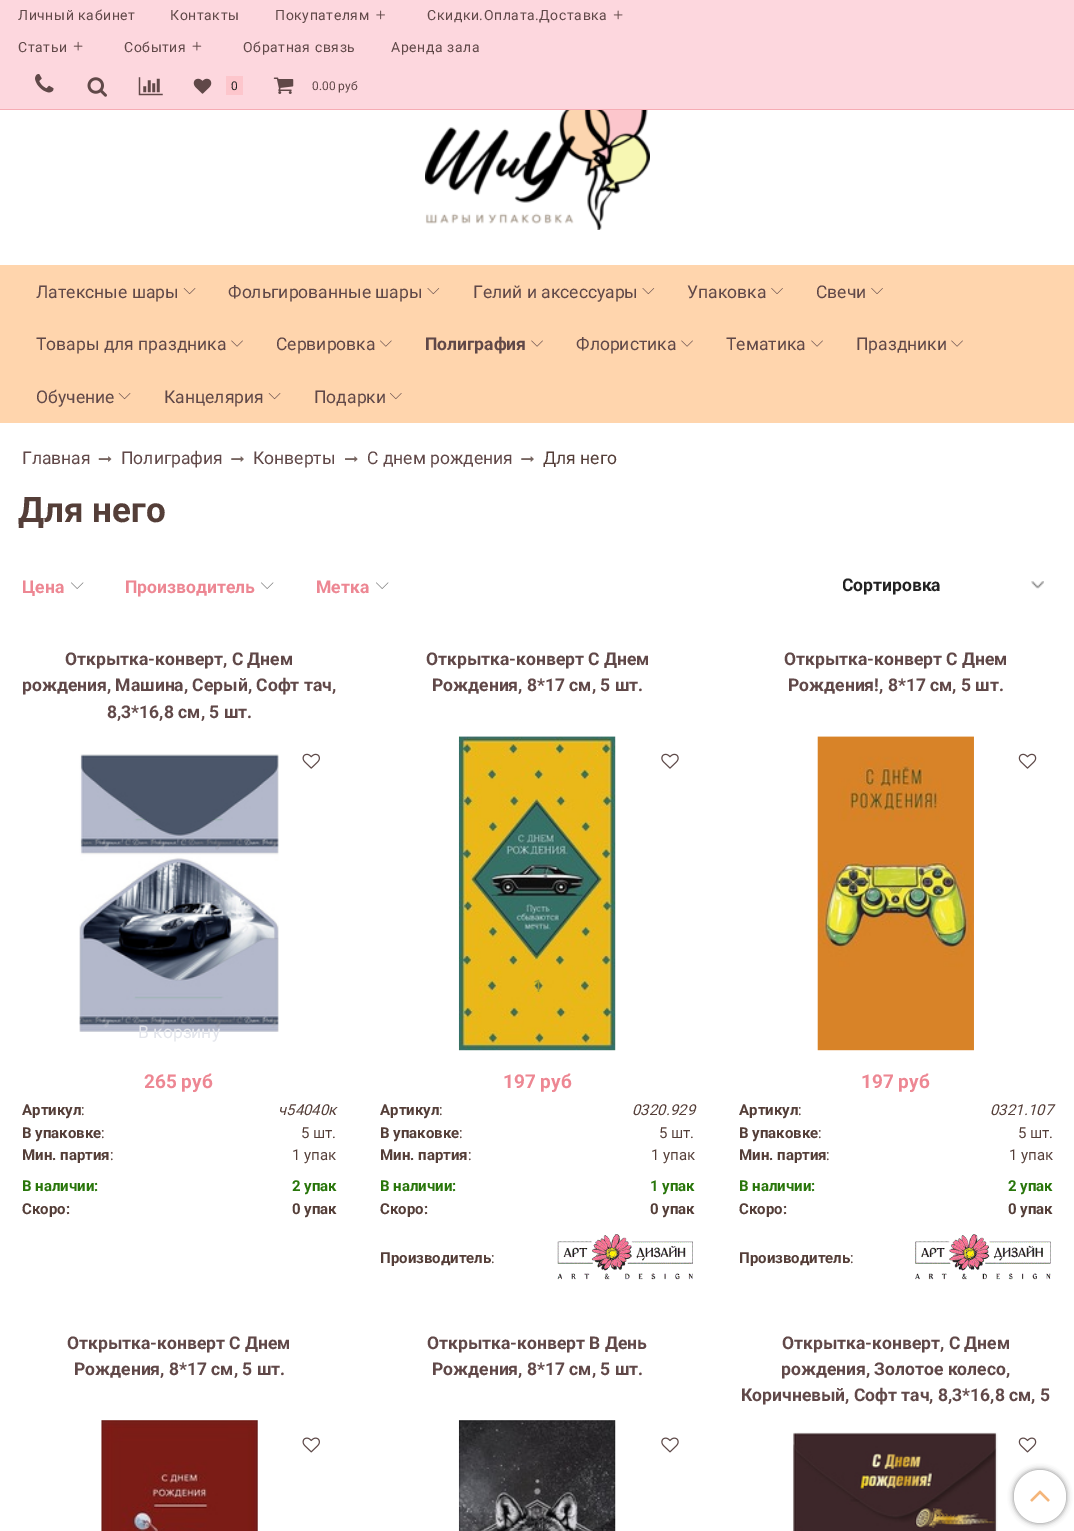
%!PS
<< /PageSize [1074 1531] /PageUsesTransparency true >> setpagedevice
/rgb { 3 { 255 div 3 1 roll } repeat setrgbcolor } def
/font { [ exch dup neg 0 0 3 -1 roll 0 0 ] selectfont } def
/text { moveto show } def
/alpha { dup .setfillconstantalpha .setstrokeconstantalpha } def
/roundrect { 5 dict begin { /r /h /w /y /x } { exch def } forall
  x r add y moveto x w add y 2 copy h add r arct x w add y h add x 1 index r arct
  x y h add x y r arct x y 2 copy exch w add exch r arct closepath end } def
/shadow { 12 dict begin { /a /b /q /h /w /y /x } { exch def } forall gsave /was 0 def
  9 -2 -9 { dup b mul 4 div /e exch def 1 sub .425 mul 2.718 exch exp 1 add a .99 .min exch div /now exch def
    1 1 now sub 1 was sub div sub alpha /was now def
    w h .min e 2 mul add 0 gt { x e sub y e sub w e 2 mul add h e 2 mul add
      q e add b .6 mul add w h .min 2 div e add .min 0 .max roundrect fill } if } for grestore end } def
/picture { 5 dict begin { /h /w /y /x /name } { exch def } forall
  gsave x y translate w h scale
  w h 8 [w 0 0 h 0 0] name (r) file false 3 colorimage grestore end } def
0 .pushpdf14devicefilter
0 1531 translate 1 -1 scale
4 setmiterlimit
255 255 255 rgb
0 0 1074 1531 rectfill
253 215 222 rgb
0 0 1074 109 rectfill
246 172 180 rgb
0 109 1074 1 rectfill
(img_01.rgb) 376 10 9 10 picture
(img_02.rgb) 613 10 10 10 picture
(img_03.rgb) 73 41 10 10 picture
(img_04.rgb) 192 41 10 10 picture
(img_05.rgb) 35 74 19 19 picture
(img_06.rgb) 87 77 20 20 picture
(img_07.rgb) 138 77 25 19 picture
(img_08.rgb) 193 78 19 16 picture
253 198 204 rgb
226 76 17 19 rectfill
(img_09.rgb) 273 77 21 17 picture
(img_10.rgb) 425 110 225 120 picture
255 213 173 rgb
0 265 1074 158 rectfill
(img_11.rgb) 183 288 13 7 picture
(img_12.rgb) 427 288 13 7 picture
(img_12.rgb) 642 288 13 7 picture
(img_13.rgb) 771 288 12 6 picture
(img_13.rgb) 871 288 12 6 picture
(img_14.rgb) 231 340 12 7 picture
(img_15.rgb) 380 340 12 7 picture
(img_14.rgb) 531 340 12 7 picture
(img_14.rgb) 681 340 12 7 picture
(img_14.rgb) 811 340 12 7 picture
(img_14.rgb) 951 340 12 7 picture
(img_11.rgb) 118 393 13 7 picture
(img_11.rgb) 268 393 13 7 picture
(img_16.rgb) 390 393 12 7 picture
(img_17.rgb) 98 456 14 6 picture
(img_18.rgb) 231 456 13 6 picture
(img_19.rgb) 345 456 13 6 picture
(img_18.rgb) 521 456 13 6 picture
(img_20.rgb) 71 582 13 7 picture
(img_20.rgb) 261 582 13 7 picture
(img_20.rgb) 376 582 13 7 picture
(img_21.rgb) 1031 581 13 8 picture
(img_22.rgb) 79 754 200 278 picture
(img_23.rgb) 302 753 18 16 picture
(img_24.rgb) 458 736 158 315 picture
(img_25.rgb) 661 753 18 16 picture
(img_26.rgb) 557 1234 136 46 picture
(img_27.rgb) 817 736 157 315 picture
(img_28.rgb) 1018 753 19 16 picture
(img_29.rgb) 915 1234 136 46 picture
(img_30.rgb) 101 1420 157 111 picture
(img_31.rgb) 302 1437 18 16 picture
(img_32.rgb) 458 1420 158 111 picture
(img_33.rgb) 661 1437 18 16 picture
(img_34.rgb) 793 1432 205 99 picture
(img_35.rgb) 1018 1437 19 16 picture
119 119 119 rgb
1014 1470 52 53 26 3 1 shadow
255 255 255 rgb
1014 1470 52 53 26 roundrect fill
(img_36.rgb) 1030 1490 20 12 picture
/Roboto-Regular 14 font
96 72 72 rgb
18 20 moveto 0.6 0 (Личный кабинет) ashow
170 20 moveto 0.6 0 (Контакты) ashow
275 20 moveto 0.6 0 (Покупателям) ashow
427 20 moveto 0.6 0 (Скидки.Оплата.Доставка) ashow
18 52 moveto 0.6 0 (Статьи) ashow
124 52 moveto 0.6 0 (События) ashow
243 52 moveto 0.6 0 (Обратная связь) ashow
391 52 moveto 0.6 0 (Аренда зала) ashow
/Roboto-Regular 12 font
34 34 34 rgb
(0) 231 90 text
96 72 72 rgb
(0.00 руб) 312 90 text
/Roboto-Regular 17.5 font
(Латексные шары) 36 298 text
(Фольгированные шары) 228 298 text
(Гелий и аксессуары) 473 298 text
(Упаковка) 687 298 text
(Свечи) 816 298 text
(Товары для праздника) 36 350 text
(Сервировка) 276 350 text
/Roboto-Bold 17.5 font
(Полиграфия) 425 350 text
/Roboto-Regular 17.5 font
(Флористика) 576 350 text
(Тематика) 726 350 text
(Праздники) 856 350 text
(Обучение) 36 403 text
(Канцелярия) 164 403 text
(Подарки) 314 403 text
(Главная) 22 464 text
(Полиграфия) 121 464 text
(Конверты) 253 464 text
(С днем рождения) 367 464 text
84 62 56 rgb
(Для него) 543 464 text
/Roboto-Bold 35 font
(Для него) 18 522 text
/Roboto-Bold 17.5 font
237 135 147 rgb
(Цена) 22 593 text
(Производитель) 125 593 text
(Метка) 316 593 text
gsave
843 571 185 29 rectclip
34 34 34 rgb
(Сортировка) 842 591 text
grestore
96 72 72 rgb
(Открытка-конверт, С Днем) 65 665 text
(рождения, Машина, Серый, Софт тач,) 22 691 text
(8,3*16,8 см, 5 шт.) 107 718 text
/Roboto-Regular 17.5 font
227 229 235 rgb
(В корзину) 138 1038 text
/Roboto-Bold 19 font
237 135 147 rgb
(265 руб) 144 1088 text
/Roboto-Bold 15 font
84 62 56 rgb
(Артикул) 22 1115 text
/Roboto-Regular 15 font
(:) 81 1115 text
/Roboto-Italic 15 font
(ч54040к) 278 1115 text
/Roboto-Bold 15 font
(В упаковке) 22 1138 text
/Roboto-Regular 15 font
(:) 101 1138 text
(5 шт.) 301 1138 text
/Roboto-Bold 15 font
(Мин. партия) 22 1160 text
/Roboto-Regular 15 font
(:) 110 1160 text
(1 упак) 292 1160 text
/Roboto-Bold 15 font
41 118 11 rgb
(В наличии:) 22 1191 text
(2 упак) 292 1191 text
84 62 56 rgb
(Скоро:) 22 1214 text
(0 упак) 292 1214 text
/Roboto-Bold 17.5 font
96 72 72 rgb
(Открытка-конверт С Днем) 426 665 text
(Рождения, 8*17 см, 5 шт.) 432 691 text
/Roboto-Regular 17.5 font
162 153 46 rgb
(1) 533 992 text
/Roboto-Bold 19 font
237 135 147 rgb
(197 руб) 503 1088 text
/Roboto-Bold 15 font
84 62 56 rgb
(Артикул) 380 1115 text
/Roboto-Regular 15 font
(:) 439 1115 text
/Roboto-Italic 15 font
(0320.929) 632 1115 text
/Roboto-Bold 15 font
(В упаковке) 380 1138 text
/Roboto-Regular 15 font
(:) 459 1138 text
(5 шт.) 659 1138 text
/Roboto-Bold 15 font
(Мин. партия) 380 1160 text
/Roboto-Regular 15 font
(:) 468 1160 text
(1 упак) 651 1160 text
/Roboto-Bold 15 font
41 118 11 rgb
(В наличии:) 380 1191 text
(1 упак) 650 1191 text
84 62 56 rgb
(Скоро:) 380 1214 text
(0 упак) 650 1214 text
(Производитель) 380 1263 text
/Roboto-Regular 15 font
(:) 491 1263 text
/Roboto-Bold 17.5 font
96 72 72 rgb
(Открытка-конверт С Днем) 784 665 text
(Рождения!, 8*17 см, 5 шт.) 788 691 text
/Roboto-Bold 19 font
237 135 147 rgb
(197 руб) 861 1088 text
/Roboto-Bold 15 font
84 62 56 rgb
(Артикул) 739 1115 text
/Roboto-Regular 15 font
(:) 798 1115 text
/Roboto-Italic 15 font
(0321.107) 990 1115 text
/Roboto-Bold 15 font
(В упаковке) 739 1138 text
/Roboto-Regular 15 font
(:) 818 1138 text
(5 шт.) 1018 1138 text
/Roboto-Bold 15 font
(Мин. партия) 739 1160 text
/Roboto-Regular 15 font
(:) 826 1160 text
(1 упак) 1009 1160 text
/Roboto-Bold 15 font
41 118 11 rgb
(В наличии:) 739 1191 text
(2 упак) 1008 1191 text
84 62 56 rgb
(Скоро:) 739 1214 text
(0 упак) 1008 1214 text
(Производитель) 739 1263 text
/Roboto-Regular 15 font
(:) 850 1263 text
/Roboto-Bold 17.5 font
96 72 72 rgb
(Открытка-конверт С Днем) 67 1349 text
(Рождения, 8*17 см, 5 шт.) 74 1375 text
(Открытка-конверт В День) 427 1349 text
(Рождения, 8*17 см, 5 шт.) 432 1375 text
(Открытка-конверт, С Днем) 782 1349 text
(рождения, Золотое колесо,) 781 1375 text
(Коричневый, Софт тач, 8,3*16,8 см, 5) 741 1401 text
.poppdf14devicefilter showpage
